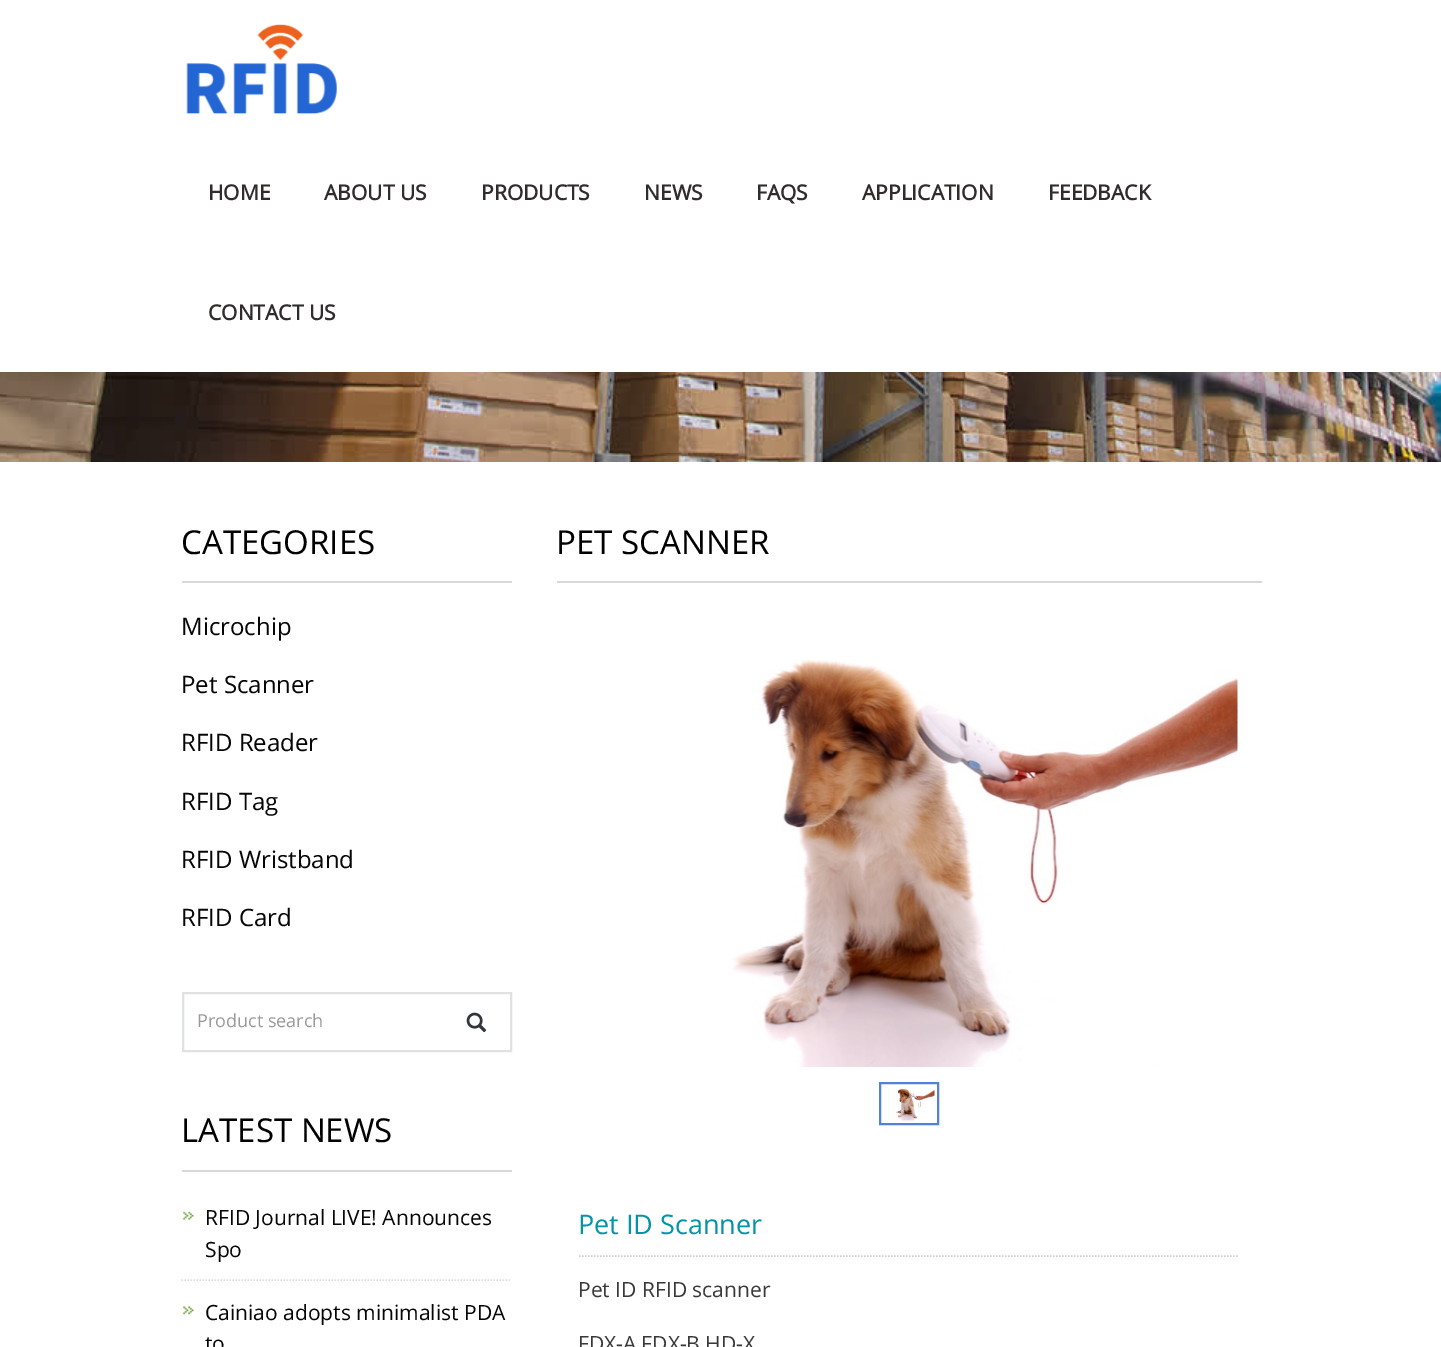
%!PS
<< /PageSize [1441 1347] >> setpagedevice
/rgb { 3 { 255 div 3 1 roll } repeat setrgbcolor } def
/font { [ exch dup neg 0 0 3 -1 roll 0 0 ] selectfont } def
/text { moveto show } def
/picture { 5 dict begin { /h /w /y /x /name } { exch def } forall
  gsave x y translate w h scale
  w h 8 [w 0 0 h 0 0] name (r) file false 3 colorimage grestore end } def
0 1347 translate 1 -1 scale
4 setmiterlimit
255 255 255 rgb
0 0 1441 1347 rectfill
(img_01.rgb) 186 24 151 91 picture
(img_02.rgb) 0 372 1441 90 picture
216 216 216 rgb
182 581 330 2 rectfill
223 225 227 rgb
2 setlinewidth
183 993 328 58 rectstroke
(img_03.rgb) 466 1012 21 21 picture
216 216 216 rgb
182 1170 330 2 rectfill
(img_04.rgb) 182 1211 12 9 picture
221 221 221 rgb
1.5 setlinewidth
[1.5 1.5] 0 setdash
181.5 1280 moveto 330 0 rlineto stroke
(img_05.rgb) 182 1306 12 9 picture
216 216 216 rgb
557 581 705 2 rectfill
(img_06.rgb) 732 659 506 408 picture
82 128 221 rgb
2 setlinewidth
[] 0 setdash
880 1083 58 41 rectstroke
(img_07.rgb) 895 1088 40 33 picture
204 204 204 rgb
1.5 setlinewidth
[1.5 1.5] 0 setdash
579 1256 moveto 660 0 rlineto stroke
/OpenSans-Bold 21 font
49 43 43 rgb
(HOME) 208 200 text
(ABOUT US) 324 200 text
(PRODUCTS) 481 200 text
(NEWS) 644 200 text
(FAQS) 756 200 text
(APPLICATION) 862 200 text
(FEEDBACK) 1048 200 text
(CONTACT US) 208 320 text
/OpenSans-Regular 33 font
0 0 0 rgb
(CATEGORIES) 181 554 text
/OpenSans-Regular 24 font
6 6 6 rgb
(Microchip) 181 635 text
(Pet Scanner) 181 693 text
(RFID Reader) 181 751 text
(RFID Tag) 181 810 text
(RFID Wristband) 181 868 text
(RFID Card) 181 926 text
/OpenSans-Regular 18 font
153 153 153 rgb
(Product search) 197 1027 text
/OpenSans-Regular 33 font
0 0 0 rgb
(LATEST NEWS) 181 1142 text
/OpenSans-Regular 21 font
6 6 6 rgb
(RFID Journal LIVE! Announces) 205 1225 text
(Spo) 205 1257 text
(Cainiao adopts minimalist PDA) 205 1320 text
(to) 205 1351 text
/OpenSans-Regular 33 font
0 0 0 rgb
(PET SCANNER) 556 554 text
/OpenSans-Regular 27 font
3 148 167 rgb
(Pet ID Scanner) 578 1234 text
/OpenSans-Regular 21 font
58 57 57 rgb
(Pet ID RFID scanner) 578 1297 text
(FDX-A,FDX-B,HD-X) 578 1351 text
showpage
